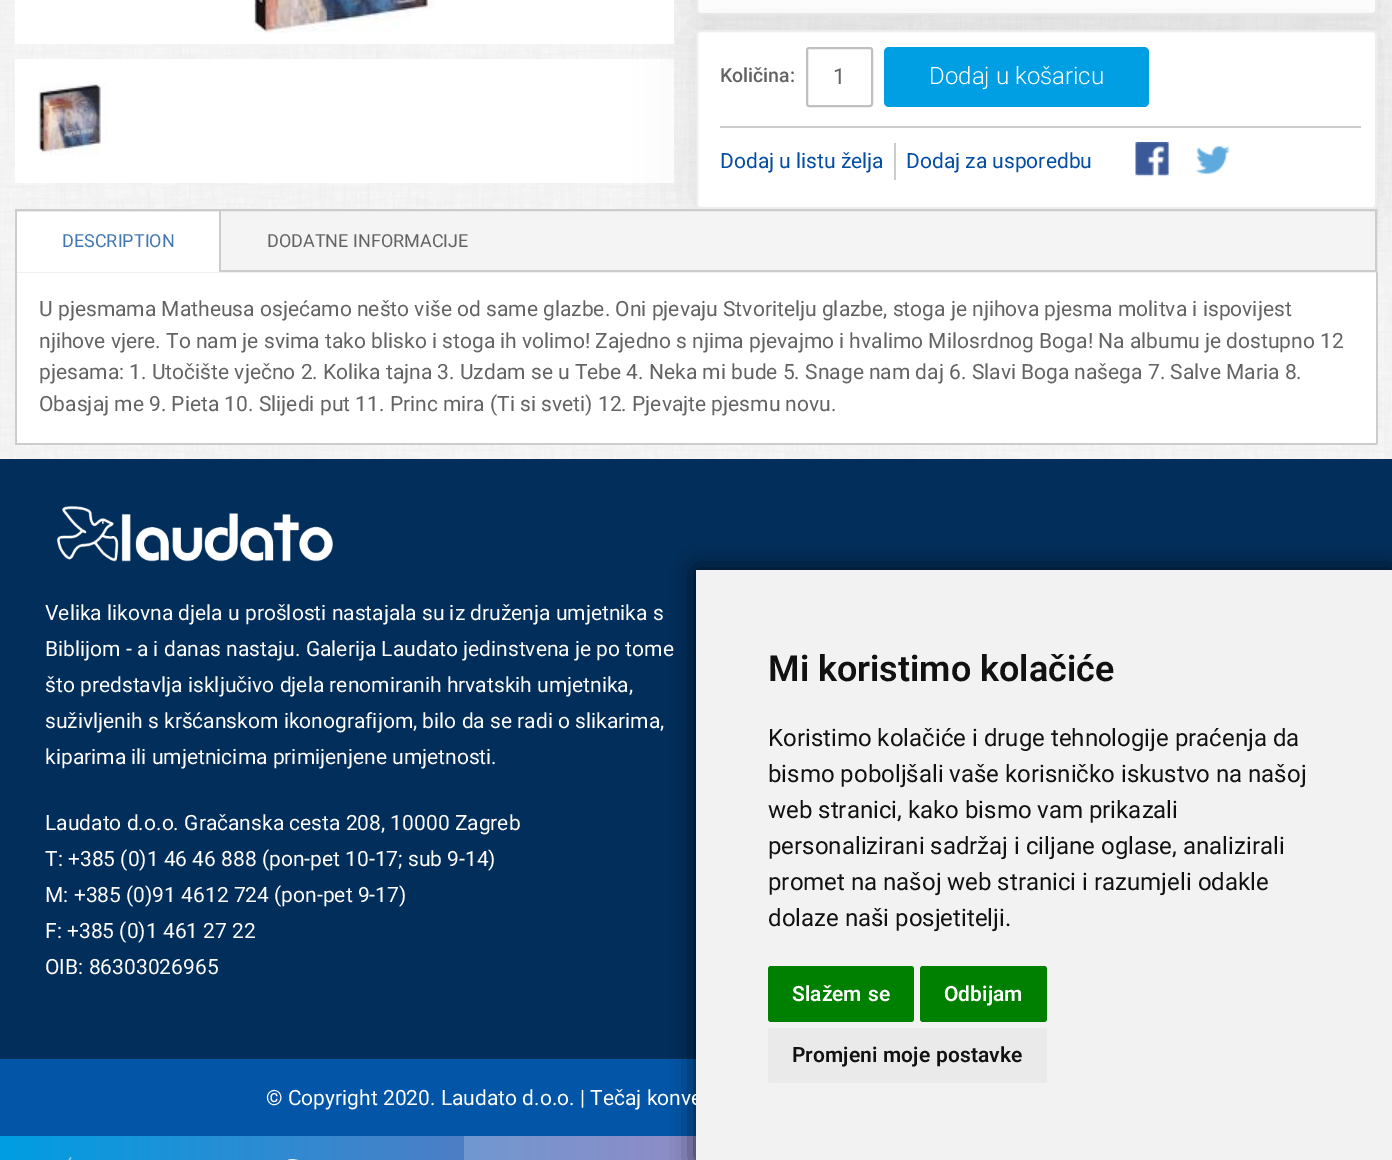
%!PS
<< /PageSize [1392 1160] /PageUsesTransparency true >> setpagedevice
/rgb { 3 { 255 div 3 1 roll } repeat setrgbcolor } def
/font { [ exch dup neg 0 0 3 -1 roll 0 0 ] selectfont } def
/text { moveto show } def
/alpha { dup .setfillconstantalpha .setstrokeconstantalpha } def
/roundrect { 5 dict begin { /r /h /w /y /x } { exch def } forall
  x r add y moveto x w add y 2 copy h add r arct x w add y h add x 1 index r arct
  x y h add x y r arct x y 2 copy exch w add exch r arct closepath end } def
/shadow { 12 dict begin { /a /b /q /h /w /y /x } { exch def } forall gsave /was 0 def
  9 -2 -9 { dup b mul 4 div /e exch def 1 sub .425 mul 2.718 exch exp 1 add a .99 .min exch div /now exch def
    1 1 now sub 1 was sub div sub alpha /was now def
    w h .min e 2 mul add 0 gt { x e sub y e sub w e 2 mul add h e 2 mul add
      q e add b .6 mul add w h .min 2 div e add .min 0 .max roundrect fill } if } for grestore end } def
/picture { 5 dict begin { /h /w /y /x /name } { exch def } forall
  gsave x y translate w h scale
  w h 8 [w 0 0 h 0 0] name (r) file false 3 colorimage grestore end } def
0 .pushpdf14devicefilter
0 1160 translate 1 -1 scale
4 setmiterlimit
255 255 255 rgb
0 0 1392 1160 rectfill
(img_01.rgb) 0 0 1392 459 picture
15 59 659 124 rectfill
0 0 0 rgb
696 -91 681 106 5 28.5 0.07 shadow
255 255 255 rgb
697 -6 679 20 4 roundrect gsave fill grestore
238 238 238 rgb
2 setlinewidth
stroke
255 255 255 rgb
17 272 1359 171 rectfill
204 204 204 rgb
1376 272 2 172 rectfill
0 0 0 rgb
696 30 681 179 5 28.5 0.07 shadow
255 255 255 rgb
15 0 659 44 rectfill
(img_02.rgb) 254 0 181 34 picture
(img_03.rgb) 38 83 70 73 picture
697 31 679 177 4 roundrect gsave fill grestore
238 238 238 rgb
stroke
204 204 204 rgb
720 126 641 2 rectfill
192 192 192 rgb
807 48 65 58 2 roundrect stroke
0 158 227 rgb
884 47 265 60 5 roundrect fill
204 204 204 rgb
894 143 2 37 rectfill
(img_04.rgb) 1135 142 35 35 picture
(img_05.rgb) 1195 145 36 30 picture
244 244 244 rgb
16 210 moveto 1360 0 rlineto 0 61 rlineto -1360 0 rlineto closepath gsave fill grestore
204 204 204 rgb
stroke
219 210 2 60 rectfill
255 255 255 rgb
17 212 202 60 rectfill
204 204 204 rgb
15 443 1362 2 rectfill
15 272 2 172 rectfill
2 46 91 rgb
0 459 1392 600 rectfill
(img_06.rgb) 57 505 276 57 picture
3 85 167 rgb
0 1059 696 77 rectfill
gsave 0 1136 moveto 696 0 rlineto 0 24 rlineto -696 0 rlineto closepath clip newpath
<< /ShadingType 2 /ColorSpace /DeviceRGB /Coords [0 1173 1392 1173] /Extend [true true] /Function << /FunctionType 2 /Domain [0 1] /C0 [0 0.62 0.89] /C1 [0.91 0.243 0.549] /N 1 >> >> shfill grestore
(img_07.rgb) 68 1156 4 4 picture
(img_08.rgb) 287 1159 12 1 picture
0.2 alpha
255 255 255 rgb
464 1136 232 24 rectfill
1 alpha
0 0 0 rgb
696 570 696 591 0 12 0.75 shadow
/Roboto-Medium 19.5 font
99 99 99 rgb
(Količina:) 720 82 text
/Roboto-Regular 22 font
(1) 833 84 text
/Roboto-Light 24 font
255 255 255 rgb
(Dodaj u košaricu) 929 84 text
/Roboto-Regular 21 font
3 77 162 rgb
(Dodaj u listu želja) 720 168 text
(Dodaj za usporedbu) 906 168 text
/Roboto-Regular 18 font
66 119 180 rgb
(DESCRIPTION) 62 247 text
99 99 99 rgb
(DODATNE INFORMACIJE) 267 247 text
/Roboto-Regular 21 font
(U pjesmama Matheusa osjećamo nešto više od same glazbe. Oni pjevaju Stvoritelju glazbe, stoga je njihova pjesma molitva i ispovijest) 39 316 text
(njihove vjere. To nam je svima tako blisko i stoga ih volimo! Zajedno s njima pjevajmo i hvalimo Milosrdnog Boga! Na albumu je dostupno 12) 39 348 text
(pjesama: 1. Utočište vječno 2. Kolika tajna 3. Uzdam se u Tebe 4. Neka mi bude 5. Snage nam daj 6. Slavi Boga našega 7. Salve Maria 8.) 39 379 text
(Obasjaj me 9. Pieta 10. Slijedi put 11. Princ mira \(Ti si sveti\) 12. Pjevajte pjesmu novu.) 39 411 text
255 255 255 rgb
(Velika likovna djela u prošlosti nastajala su iz druženja umjetnika s) 45 620 text
(Biblijom - a i danas nastaju. Galerija Laudato jedinstvena je po tome) 45 656 text
(što predstavlja isključivo djela renomiranih hrvatskih umjetnika,) 45 692 text
(suživljenih s kršćanskom ikonografijom, bilo da se radi o slikarima,) 45 728 text
(kiparima ili umjetnicima primijenjene umjetnosti.) 45 764 text
(Laudato d.o.o. Gračanska cesta 208, 10000 Zagreb) 45 830 text
(T: +385 \(0\)1 46 46 888 \(pon-pet 10-17; sub 9-14\)) 45 866 text
(M: +385 \(0\)91 4612 724 \(pon-pet 9-17\)) 45 902 text
(F: +385 \(0\)1 461 27 22) 45 938 text
(OIB: 86303026965) 45 974 text
(© Copyright 2020. Laudato d.o.o. | Tečaj konve) 266 1105 text
242 242 242 rgb
696 570 696 590 rectfill
/Roboto-SemiBold 36 font
17 17 17 rgb
(Mi koristimo kolačiće) 768 681 text
/Roboto-Regular 24 font
(Koristimo kolačiće i druge tehnologije praćenja da) 768 746 text
(bismo poboljšali vaše korisničko iskustvo na našoj) 768 782 text
(web stranici, kako bismo vam prikazali) 768 818 text
(personalizirani sadržaj i ciljane oglase, analizirali) 768 854 text
(promet na našoj web stranici i razumjeli odakle) 768 890 text
(dolaze naši posjetitelji.) 768 926 text
0 128 0 rgb
768 966 146 56 3 roundrect fill
/Roboto-SemiBold 21 font
255 255 255 rgb
792 1001 moveto 1 0 32 (Slažem se) widthshow
0 128 0 rgb
920 966 127 56 3 roundrect fill
255 255 255 rgb
(Odbijam) 944 1001 text
234 234 234 rgb
768 1028 279 55 3 roundrect fill
17 17 17 rgb
792 1062 moveto 1 0 32 (Promjeni moje postavke) widthshow
.poppdf14devicefilter showpage
